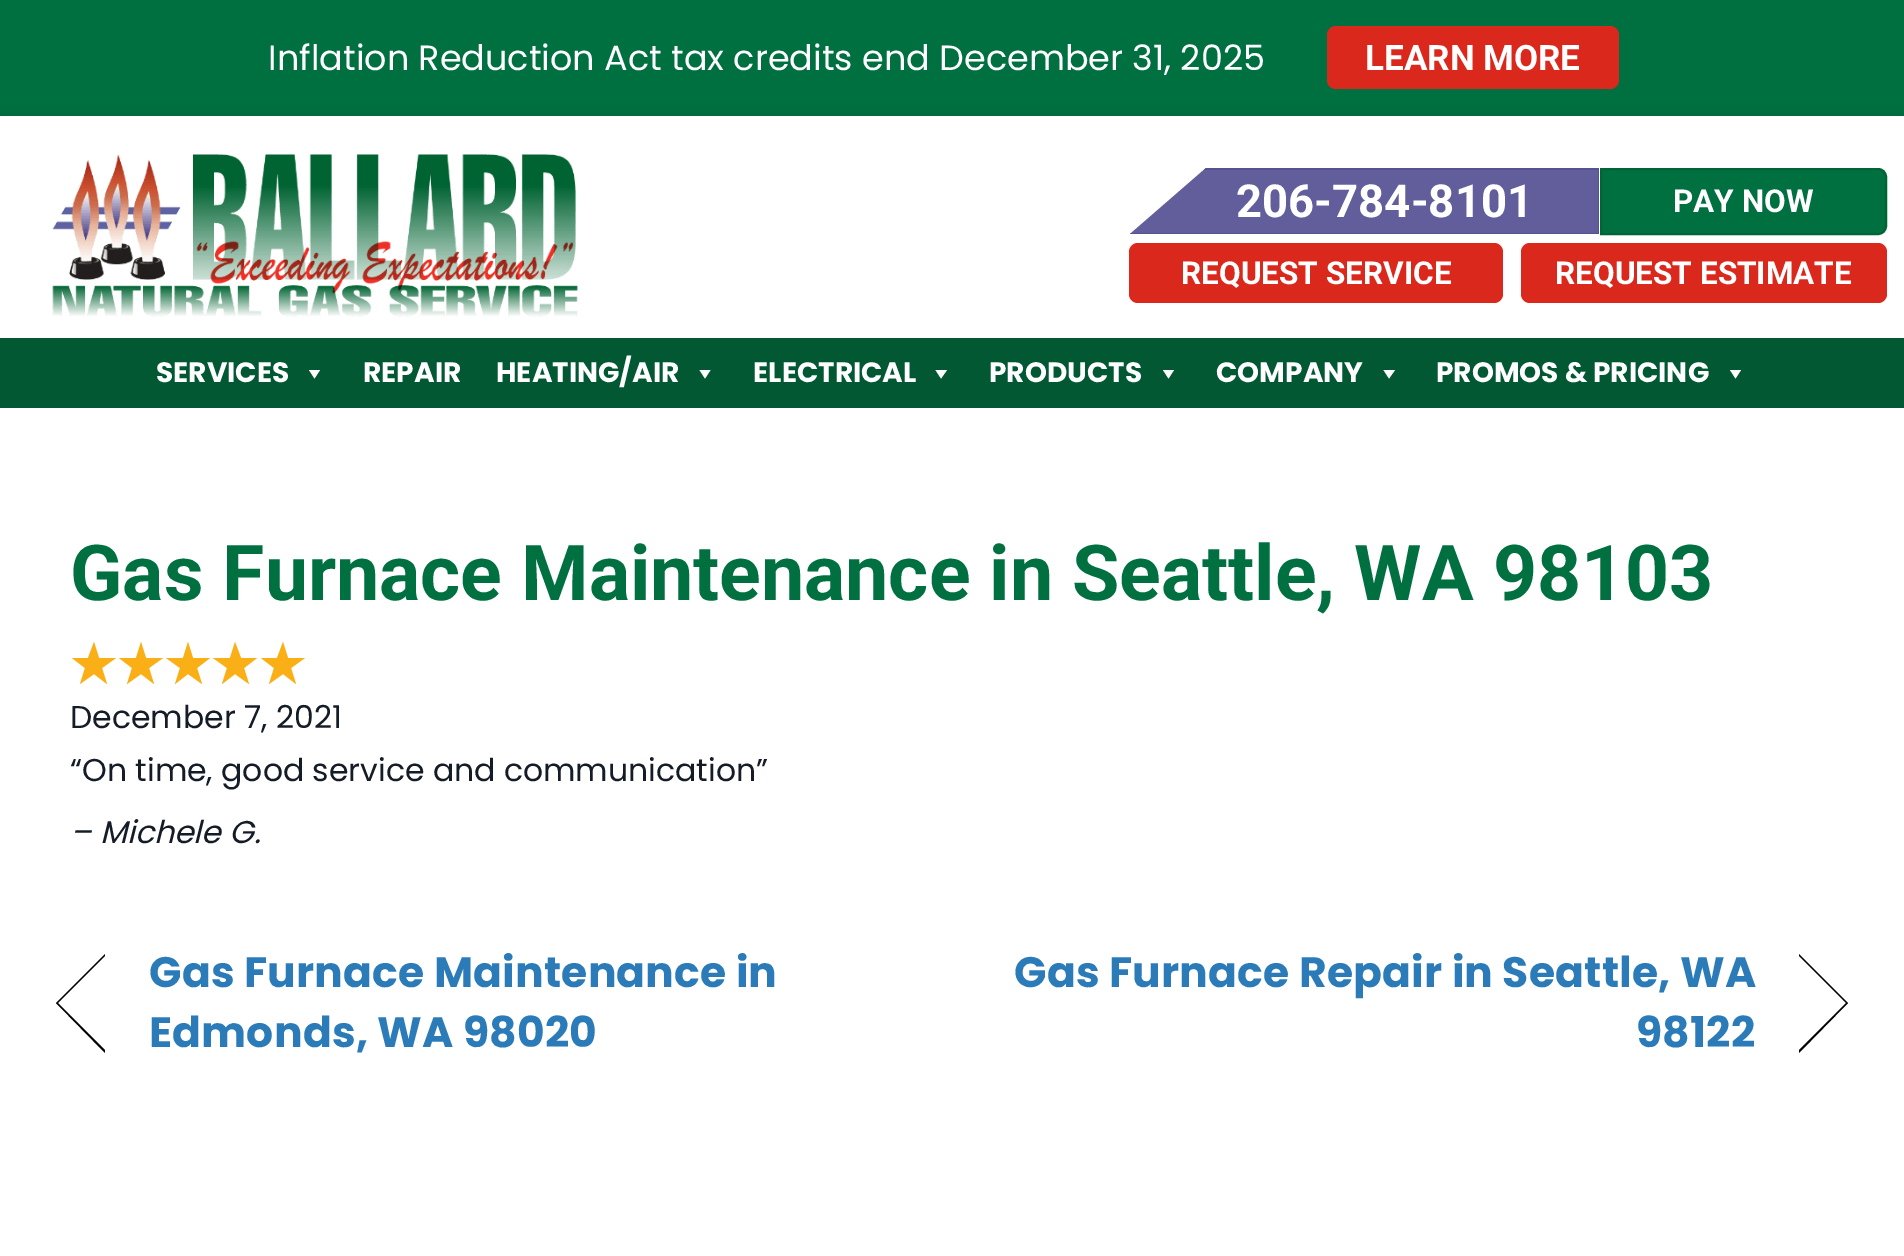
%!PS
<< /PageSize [1904 1256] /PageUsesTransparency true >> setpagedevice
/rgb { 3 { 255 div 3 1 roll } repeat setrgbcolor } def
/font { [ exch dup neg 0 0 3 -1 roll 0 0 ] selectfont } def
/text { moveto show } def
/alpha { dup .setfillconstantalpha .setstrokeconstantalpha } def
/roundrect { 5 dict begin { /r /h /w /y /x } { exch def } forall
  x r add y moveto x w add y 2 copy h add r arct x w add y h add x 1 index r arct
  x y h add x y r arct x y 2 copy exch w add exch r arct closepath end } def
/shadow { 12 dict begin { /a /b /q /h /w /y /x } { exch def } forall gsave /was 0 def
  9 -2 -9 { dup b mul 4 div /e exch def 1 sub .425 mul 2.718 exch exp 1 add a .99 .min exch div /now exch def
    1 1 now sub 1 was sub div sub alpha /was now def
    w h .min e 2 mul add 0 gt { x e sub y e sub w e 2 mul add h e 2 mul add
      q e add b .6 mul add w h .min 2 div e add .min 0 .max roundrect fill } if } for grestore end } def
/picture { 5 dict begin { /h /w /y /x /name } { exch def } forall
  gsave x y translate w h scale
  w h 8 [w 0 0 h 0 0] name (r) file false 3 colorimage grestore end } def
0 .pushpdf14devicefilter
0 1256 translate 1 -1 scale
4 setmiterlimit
255 255 255 rgb
0 0 1904 1256 rectfill
0 112 65 rgb
0 0 1904 116 rectfill
218 41 28 rgb
1327 26 292 63 9 roundrect fill
0 0 0 rgb
0 124 1904 223 0 9 0.3 shadow
255 255 255 rgb
0 116 1904 222 rectfill
(img_01.rgb) 52 154 526 163 picture
97 94 155 rgb
1599 168 moveto 0 66 rlineto -469 0 rlineto 76 -66 rlineto closepath fill
85 82 143 rgb
1599 168 moveto -393 0 rlineto -2 2 rlineto 394 0 rlineto 0 63 rlineto -467 0 rlineto -1 1 rlineto 469 0 rlineto closepath fill
0 112 65 rgb
1601 169 moveto 277 0 rlineto 4.5 0 8 3.5 8 8 rcurveto 0 49 rlineto 0 4.5 -3.5 8 -8 8 rcurveto -277 0 rlineto closepath gsave fill grestore
0 100 53 rgb
2 setlinewidth
stroke
218 41 28 rgb
1129 243 374 60 9 roundrect fill
1521 243 366 60 9 roundrect fill
1 88 51 rgb
0 338 1904 70 rectfill
255 255 255 rgb
320 370 moveto -5.5 8.5 rlineto -5.5 -8.5 rlineto closepath fill
710.5 370 moveto -5.5 8.5 rlineto -5.5 -8.5 rlineto closepath fill
947 370 moveto -6 8.5 rlineto -5.5 -8.5 rlineto closepath fill
1174 370 moveto -5.5 8.5 rlineto -5.5 -8.5 rlineto closepath fill
1395 370 moveto -6 8.5 rlineto -5.5 -8.5 rlineto closepath fill
1741 370 moveto -5.5 8.5 rlineto -5.5 -8.5 rlineto closepath fill
251 175 23 rgb
94 642 moveto 5 16 rlineto -5 -16 rlineto 5 16 rlineto 17 0 rlineto -14 10 rlineto 5 16 rlineto -13 -10 rlineto -14 10 rlineto 5 -16 rlineto -13 -10 rlineto 16 0 rlineto closepath fill
141 642 moveto 5 16 rlineto -5 -16 rlineto 5 16 rlineto 17 0 rlineto -14 10 rlineto 5 16 rlineto -13 -10 rlineto -14 10 rlineto 5 -16 rlineto -13 -10 rlineto 17 0 rlineto closepath fill
188 642 moveto 5 16 rlineto -5 -16 rlineto 5 16 rlineto 17 0 rlineto -13 10 rlineto 5 16 rlineto -14 -10 rlineto -13 10 rlineto 5 -16 rlineto -14 -10 rlineto 17 0 rlineto closepath fill
235 642 moveto 6 16 rlineto -6 -16 rlineto 6 16 rlineto 16 0 rlineto -13 10 rlineto 5 16 rlineto -14 -10 rlineto -13 10 rlineto 5 -16 rlineto -14 -10 rlineto 17 0 rlineto closepath fill
283 642 moveto 5 16 rlineto -5 -16 rlineto 5 16 rlineto 17 0 rlineto -14 10 rlineto 5 16 rlineto -13 -10 rlineto -14 10 rlineto 5 -16 rlineto -13 -10 rlineto 16 0 rlineto closepath fill
0 0 0 rgb
105 1053 moveto -49 -50 rlineto 2 0 rlineto 47 47 rlineto closepath fill
56 1003 moveto 49 -49 rlineto 0 2 rlineto -47 47 rlineto closepath fill
1799 954 moveto 49 49 rlineto -2 0 rlineto -47 -47 rlineto closepath fill
1848 1003 moveto -49 50 rlineto 0 -3 rlineto 47 -47 rlineto closepath fill
/Poppins-Regular 35 font
255 255 255 rgb
(Inflation Reduction Act tax credits end December 31, 2025) 268 70 text
/Roboto-Bold 35 font
(LEARN MORE) 1365 70 text
/Roboto-Bold 45.5 font
(206-784-8101) 1236 217 text
/Roboto-Bold 31.5 font
(PAY NOW) 1673 212 text
(REQUEST SERVICE) 1181 284 text
(REQUEST ESTIMATE) 1555 284 text
/Poppins-Bold 28 font
(SERVICES) 156 382 text
(REPAIR) 363 382 text
(HEATING/AIR) 496 382 text
(ELECTRICAL) 753 382 text
(PRODUCTS) 989 382 text
(COMPANY) 1216 382 text
(PROMOS & PRICING) 1436 382 text
/Roboto-Bold 77 font
0 112 65 rgb
(Gas Furnace Maintenance in Seattle, WA 98103) 70 600 text
/Poppins-Regular 31.5 font
20 28 39 rgb
(December 7, 2021) 70 728 text
(“On time, good service and communication”) 70 781 text
/Poppins-Italic 31.5 font
(– Michele G.) 70 843 text
/Poppins-Bold 42.5 font
43 123 185 rgb
149 987 moveto 0.2 0 (Gas Furnace Maintenance in) ashow
149 1047 moveto 0.2 0 (Edmonds, WA 98020) ashow
1014 987 moveto 0.2 0 (Gas Furnace Repair in Seattle, WA) ashow
1636 1047 moveto 0.2 0 (98122) ashow
.poppdf14devicefilter showpage
